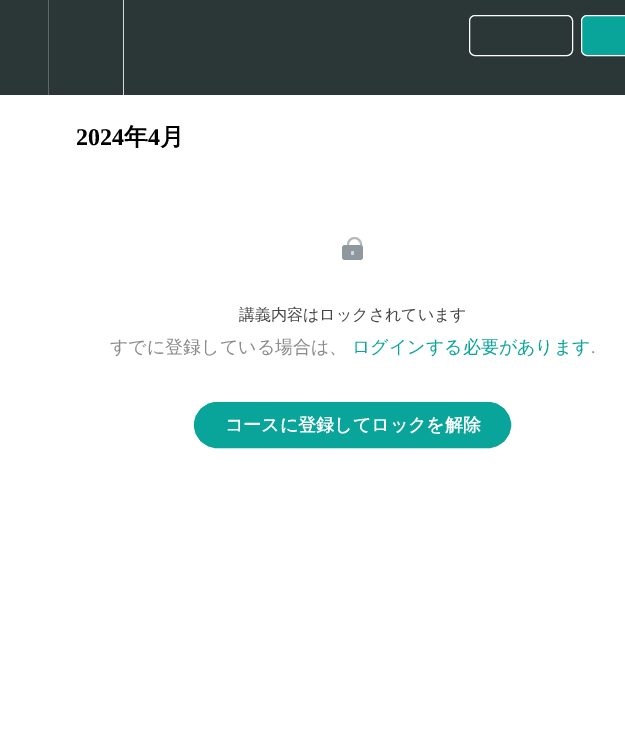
%!PS
<< /PageSize [625 747] >> setpagedevice
/rgb { 3 { 255 div 3 1 roll } repeat setrgbcolor } def
/font { [ exch dup neg 0 0 3 -1 roll 0 0 ] selectfont } def
/text { moveto show } def
/roundrect { 5 dict begin { /r /h /w /y /x } { exch def } forall
  x r add y moveto x w add y 2 copy h add r arct x w add y h add x 1 index r arct
  x y h add x y r arct x y 2 copy exch w add exch r arct closepath end } def
0 747 translate 1 -1 scale
4 setmiterlimit
255 255 255 rgb
0 0 625 747 rectfill
43 54 54 rgb
0 0 625 95 rectfill
215 218 219 rgb
123 0 1 95 rectfill
95 103 104 rgb
48 0 1 95 rectfill
255 255 255 rgb
469.5 15.5 103 40 5.5 roundrect stroke
9 165 154 rgb
581.5 15.5 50 40 5.5 roundrect gsave fill grestore
255 255 255 rgb
stroke
181 186 191 rgb
2 setlinewidth
348 238 13 20 6.5 roundrect stroke
143 152 159 rgb
342 245 21 15 3 roundrect fill
211 215 220 rgb
351 251 3 4 1.5 roundrect fill
9 165 154 rgb
194.5 402.5 316 45 22.5 roundrect gsave fill grestore
1 setlinewidth
stroke
/LiberationSerif-Bold 24 font
0 0 0 rgb
(2024) 76 145 text
/WenQuanYiZenHei-Bold 24 font
(年) 124 145 text
/LiberationSerif-Bold 24 font
(4) 148 145 text
/WenQuanYiZenHei-Bold 24 font
(月) 160 145 text
/WenQuanYiZenHei-Medium 16 font
69 69 69 rgb
(講義内容はロックされています) 239 320 text
/WenQuanYiZenHei-Medium 18 font
139 139 139 rgb
(すでに登録している場合は、) 110 353 text
9 165 154 rgb
(ログインする必要があります) 352 353 text
/LiberationSerif-Regular 18 font
139 139 139 rgb
(.) 591 353 text
/WenQuanYiZenHei-Bold 18 font
255 255 255 rgb
(コースに登録してロックを解除) 225 431 text
showpage
